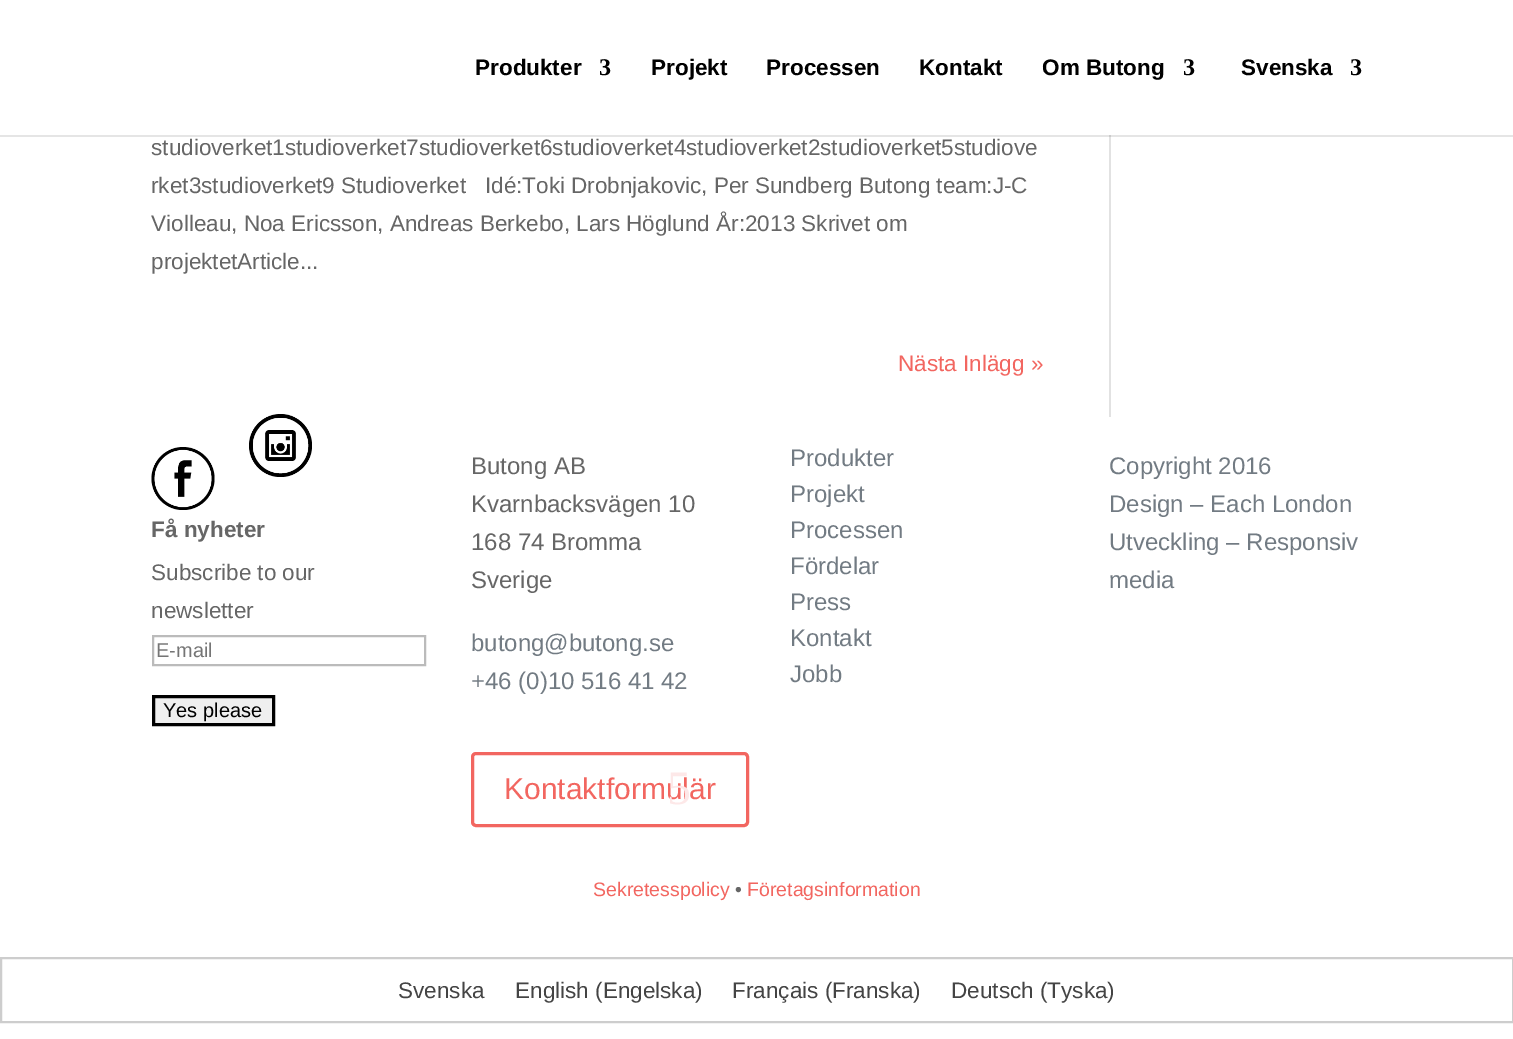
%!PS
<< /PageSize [1513 1039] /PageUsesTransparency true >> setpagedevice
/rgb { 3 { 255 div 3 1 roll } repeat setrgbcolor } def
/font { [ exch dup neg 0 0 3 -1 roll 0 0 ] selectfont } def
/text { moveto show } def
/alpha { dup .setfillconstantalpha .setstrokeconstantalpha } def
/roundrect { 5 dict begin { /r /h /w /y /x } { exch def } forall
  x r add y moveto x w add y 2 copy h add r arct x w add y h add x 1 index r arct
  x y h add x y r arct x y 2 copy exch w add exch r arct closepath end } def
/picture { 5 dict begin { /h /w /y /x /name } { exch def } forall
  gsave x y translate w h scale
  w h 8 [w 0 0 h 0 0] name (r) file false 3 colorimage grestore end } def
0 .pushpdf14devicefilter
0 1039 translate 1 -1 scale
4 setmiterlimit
255 255 255 rgb
0 0 1513 1039 rectfill
226 226 226 rgb
1109 135 2 282 rectfill
0.1 alpha
0 0 0 rgb
0 135 moveto 0 2 rlineto 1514 0 rlineto 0 -135 rlineto 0 133 rlineto closepath fill
1 alpha
(img_01.rgb) 151 447 64 63 picture
(img_02.rgb) 249 414 63 63 picture
187 187 187 rgb
2 setlinewidth
153 636 272 29 rectstroke
239 239 239 rgb
153.5 696.5 moveto 120 0 rlineto 0 28 rlineto -120 0 rlineto closepath gsave fill grestore
0 0 0 rgb
3 setlinewidth
stroke
242 102 96 rgb
472.5 753.5 275 72 3.5 roundrect stroke
205 205 205 rgb
2 setlinewidth
1 958 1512 64 rectstroke
/LiberationSans-Bold 22.5 font
0 0 0 rgb
(Produkter) 475 75 text
/LiberationSerif-Bold 24 font
(3) 599 75 text
/LiberationSans-Bold 22.5 font
(Projekt) 651 75 text
(Processen) 766 75 text
(Kontakt) 919 75 text
(Om Butong) 1042 75 text
/LiberationSerif-Bold 24 font
(3) 1183 75 text
/LiberationSans-Bold 22.5 font
(Svenska) 1241 75 text
/LiberationSerif-Bold 24 font
(3) 1350 75 text
/LiberationSans-Regular 22.5 font
102 102 102 rgb
(studioverket1studioverket7studioverket6studioverket4studioverket2studioverket5studiove) 151 155 text
(rket3studioverket9 Studioverket   Idé:Toki Drobnjakovic, Per Sundberg Butong team:J-C) 151 193 text
(Violleau, Noa Ericsson, Andreas Berkebo, Lars Höglund År:2013 Skrivet om) 151 231 text
(projektetArticle...) 151 269 text
242 102 96 rgb
(Nästa Inlägg ») 898 371 text
/LiberationSans-Bold 22.5 font
102 102 102 rgb
(Få nyheter) 151 537 text
/LiberationSans-Regular 22.5 font
(Subscribe to our) 151 580 text
(newsletter) 151 618 text
/LiberationSans-Regular 20 font
117 117 117 rgb
(E-mail) 156 657 text
0 0 0 rgb
(Yes please) 163 717 text
/LiberationSans-Regular 24 font
102 102 102 rgb
(Butong AB) 471 474 text
(Kvarnbacksvägen 10) 471 512 text
(168 74 Bromma) 471 550 text
(Sverige) 471 588 text
114 123 131 rgb
(butong@butong.se) 471 651 text
(+46 \(0\)10 516 41 42) 471 689 text
/LiberationSans-Regular 30 font
242 102 96 rgb
(Kontaktformulär) 504 799 text
/LiberationSerif-Regular 48 font
253 232 232 rgb
(5) 667 804 text
/LiberationSans-Regular 24 font
114 123 131 rgb
(Produkter) 790 466 text
(Projekt) 790 502 text
(Processen) 790 538 text
(Fördelar) 790 574 text
(Press) 790 610 text
(Kontakt) 790 646 text
(Jobb) 790 682 text
(Copyright 2016) 1109 474 text
(Design – Each London) 1109 512 text
(Utveckling – Responsiv) 1109 550 text
(media) 1109 588 text
/LiberationSans-Regular 19.5 font
242 102 96 rgb
(Sekretesspolicy) 593 896 text
102 102 102 rgb
(•) 735 896 text
242 102 96 rgb
(Företagsinformation) 747 896 text
/LiberationSans-Regular 22.5 font
68 68 68 rgb
(Svenska) 398 998 text
(English \(Engelska\)) 515 998 text
(Français \(Franska\)) 732 998 text
(Deutsch \(Tyska\)) 951 998 text
.poppdf14devicefilter showpage
